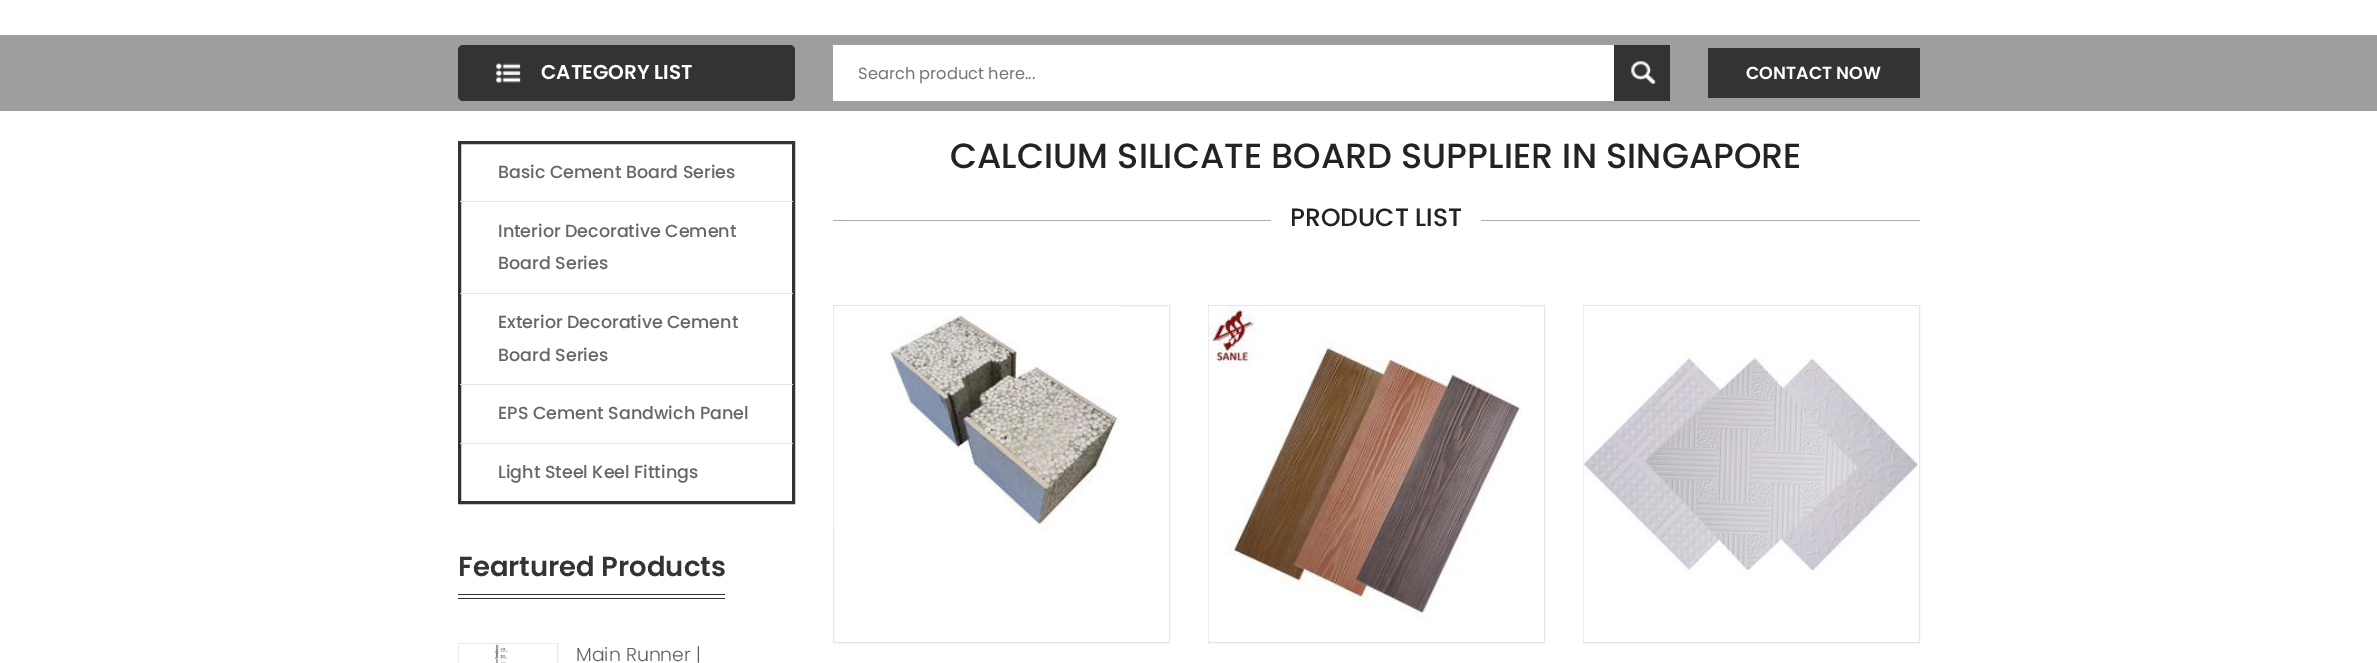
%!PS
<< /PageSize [2377 663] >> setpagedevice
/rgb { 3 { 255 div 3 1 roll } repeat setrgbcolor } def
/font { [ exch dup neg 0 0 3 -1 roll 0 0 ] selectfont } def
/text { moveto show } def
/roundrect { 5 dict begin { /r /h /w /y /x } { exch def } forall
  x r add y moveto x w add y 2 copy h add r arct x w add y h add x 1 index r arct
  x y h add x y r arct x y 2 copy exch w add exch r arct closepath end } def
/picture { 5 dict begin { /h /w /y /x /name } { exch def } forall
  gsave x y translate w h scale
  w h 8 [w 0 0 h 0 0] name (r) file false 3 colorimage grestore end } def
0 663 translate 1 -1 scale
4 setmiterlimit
255 255 255 rgb
0 0 2377 663 rectfill
158 158 158 rgb
0 35 2377 76 rectfill
51 51 51 rgb
458 45 337 56 5 roundrect fill
(img_01.rgb) 496 63 25 20 picture
255 255 255 rgb
833 45 781 56 rectfill
51 51 51 rgb
1614 45 56 56 rectfill
(img_02.rgb) 1631 61 25 23 picture
1708 48 212 50 rectfill
3 setlinewidth
459.5 142.5 334 360 rectstroke
229 229 229 rgb
460 201 333 1 rectfill
460 293 333 1 rectfill
460 384 333 1 rectfill
460 443 333 1 rectfill
48 48 48 rgb
458 594 267 1 rectfill
458 598 267 1 rectfill
229 229 229 rgb
1 setlinewidth
458.5 643.5 99 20 rectstroke
(img_03.rgb) 458 643 98 20 picture
165 171 183 rgb
833 220 438 1 rectfill
1481 220 439 1 rectfill
229 229 229 rgb
833.5 305.5 336 337 rectstroke
(img_04.rgb) 833 306 287 225 picture
1208.5 305.5 336 337 rectstroke
(img_05.rgb) 1208 306 314 335 picture
1583.5 305.5 336 337 rectstroke
(img_06.rgb) 1583 306 335 335 picture
/Poppins-SemiBold 20 font
255 255 255 rgb
(CATEGORY LIST) 541 79 text
/Poppins-Regular 16.25 font
117 117 117 rgb
(Search product here...) 858 79 text
/Poppins-SemiBold 17.5 font
255 255 255 rgb
(CONTACT NOW) 1746 79 text
/Poppins-Medium 17.5 font
102 102 102 rgb
(Basic Cement Board Series) 498 178 text
(Interior Decorative Cement) 498 237 text
(Board Series) 498 269 text
(Exterior Decorative Cement) 498 328 text
(Board Series) 498 361 text
(EPS Cement Sandwich Panel) 498 419 text
(Light Steel Keel Fittings) 498 478 text
/Poppins-SemiBold 27.5 font
52 52 52 rgb
(Feartured Products) 458 576 text
/Poppins-Light 18.75 font
96 96 96 rgb
(Main Runner |) 576 661 text
/Poppins-Medium 35 font
35 35 35 rgb
(CALCIUM SILICATE BOARD SUPPLIER IN SINGAPORE) 950 168 text
/Poppins-Medium 25 font
(PRODUCT LIST) 1290 226 text
showpage
